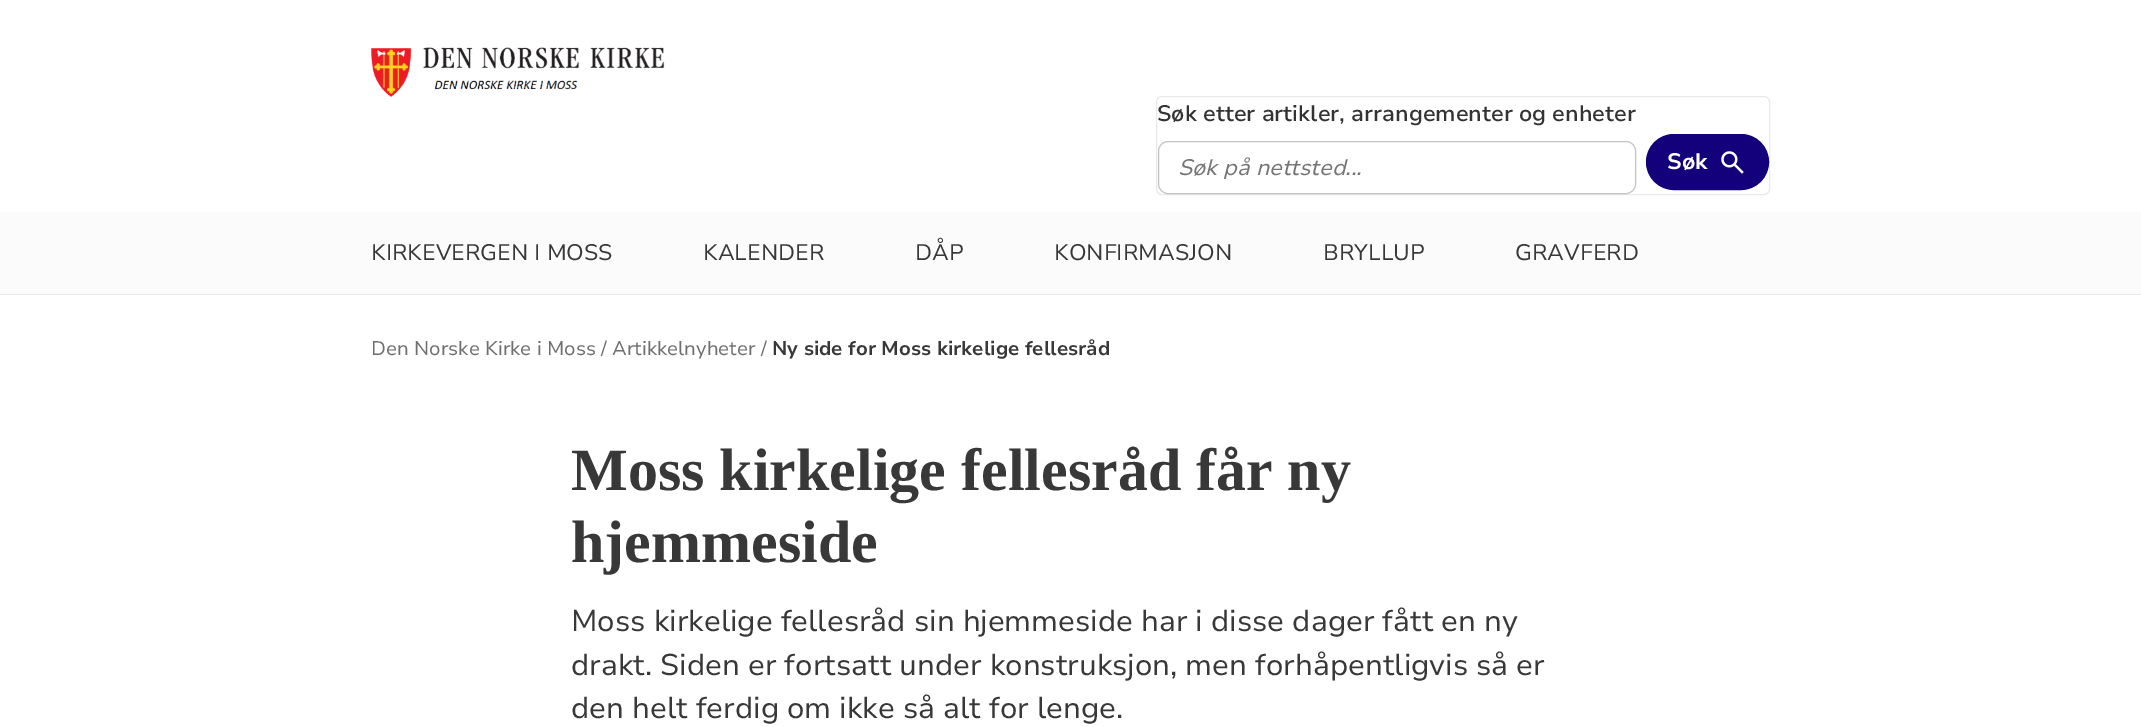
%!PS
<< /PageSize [2141 727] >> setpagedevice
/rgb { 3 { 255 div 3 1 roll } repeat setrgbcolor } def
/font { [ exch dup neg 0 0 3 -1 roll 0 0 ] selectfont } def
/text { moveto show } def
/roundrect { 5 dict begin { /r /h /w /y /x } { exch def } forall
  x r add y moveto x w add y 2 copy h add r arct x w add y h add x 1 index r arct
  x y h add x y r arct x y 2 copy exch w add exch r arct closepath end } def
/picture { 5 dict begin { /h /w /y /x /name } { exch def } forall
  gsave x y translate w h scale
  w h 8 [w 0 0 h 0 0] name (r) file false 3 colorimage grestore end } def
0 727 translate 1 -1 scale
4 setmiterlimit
255 255 255 rgb
0 0 2141 727 rectfill
(img_01.rgb) 371 47 294 50 picture
233 233 233 rgb
1156.5 96.5 613 98 5.5 roundrect stroke
196 196 196 rgb
1158.5 141.5 477 52 9.5 roundrect stroke
19 1 124 rgb
1646.5 134.5 122 55 27.5 roundrect gsave fill grestore
stroke
(img_02.rgb) 1721 151 23 23 picture
251 251 251 rgb
0 212 2141 82 rectfill
233 233 233 rgb
0 294 2141 1 rectfill
/NunitoSans-SemiBold 22.5 font
51 51 51 rgb
(Søk etter artikler, arrangementer og enheter) 1157 121 text
/NunitoSans-Italic 22.5 font
117 117 117 rgb
(Søk på nettsted...) 1178 175 text
/NunitoSans-Bold 22.5 font
255 255 255 rgb
(Søk) 1667 169 text
/NunitoSans-Regular 22.5 font
57 56 56 rgb
(KIRKEVERGEN I MOSS) 371 260 text
(KALENDER) 703 260 text
(DÅP) 915 260 text
(KONFIRMASJON) 1054 260 text
(BRYLLUP) 1323 260 text
(GRAVFERD) 1515 260 text
/NunitoSans-Regular 19.7 font
111 111 111 rgb
(Den Norske Kirke i Moss / Artikkelnyheter /) 371 355 text
/NunitoSans-Bold 19.7 font
57 56 56 rgb
(Ny side for Moss kirkelige fellesråd) 772 355 text
/LiberationSerif-Bold 60 font
(Moss kirkelige fellesråd får ny) 571 490 text
(hjemmeside) 571 562 text
/NunitoSans-Regular 30 font
(Moss kirkelige fellesråd sin hjemmeside har i disse dager fått en ny) 571 631 text
(drakt. Siden er fortsatt under konstruksjon, men forhåpentligvis så er) 571 675 text
(den helt ferdig om ikke så alt for lenge.) 571 718 text
showpage
